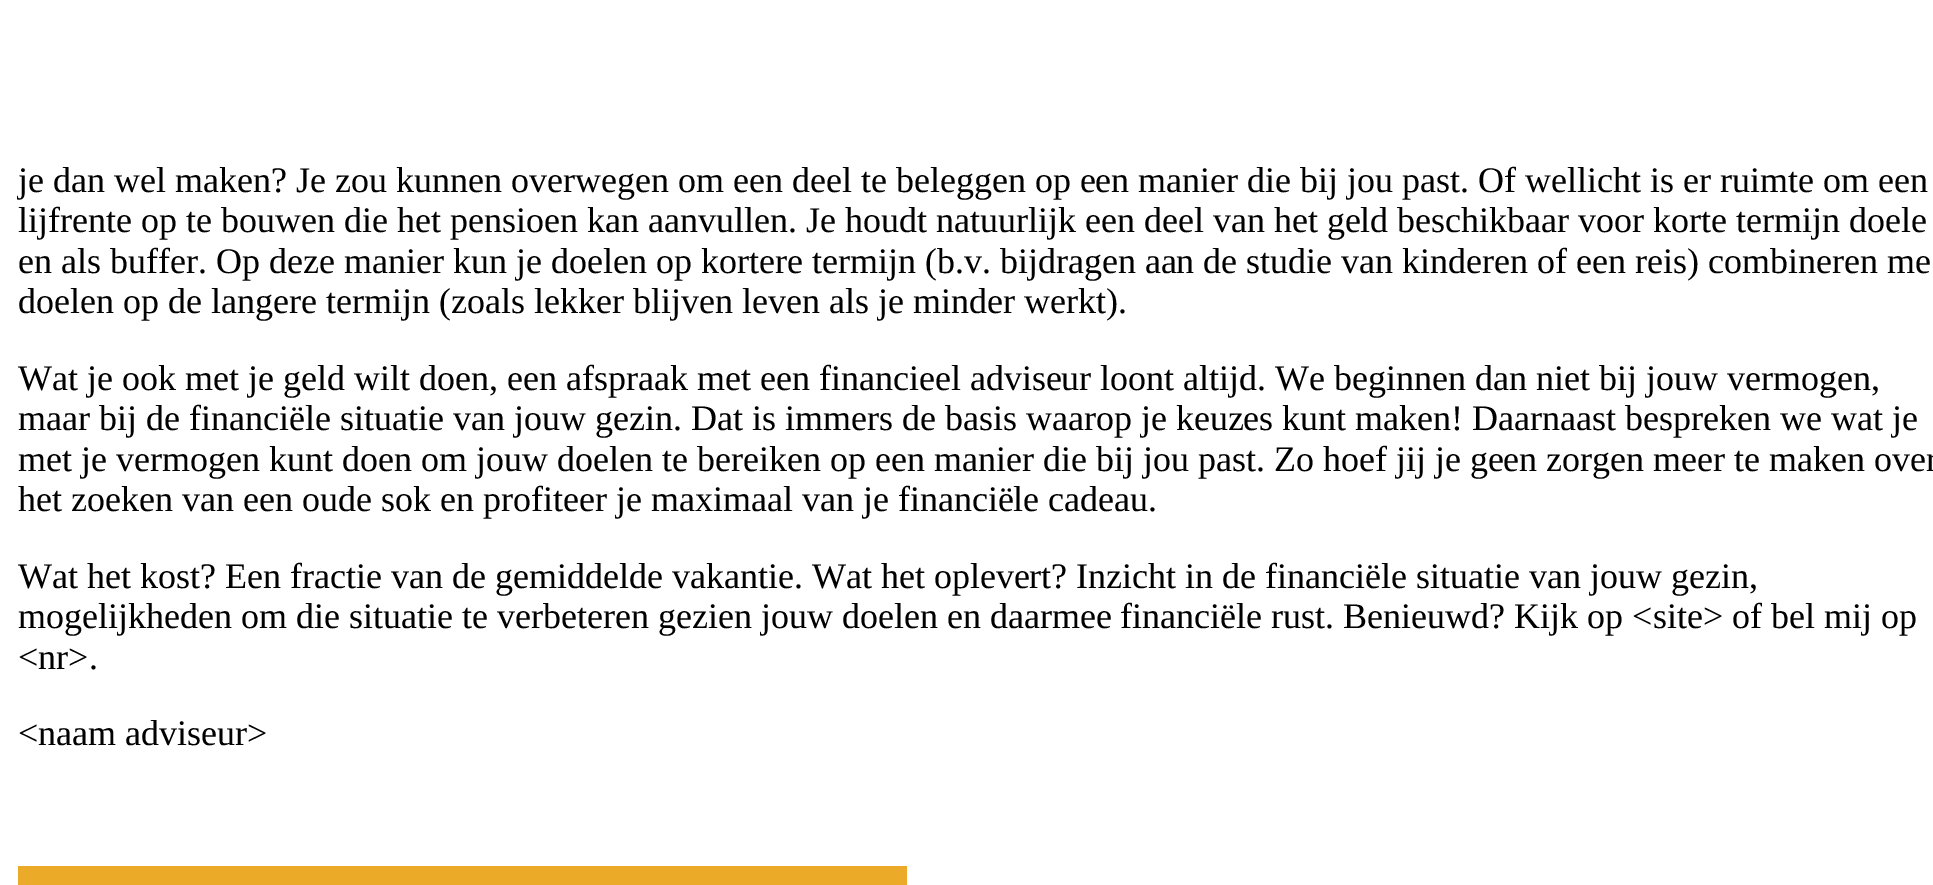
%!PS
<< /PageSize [1933 885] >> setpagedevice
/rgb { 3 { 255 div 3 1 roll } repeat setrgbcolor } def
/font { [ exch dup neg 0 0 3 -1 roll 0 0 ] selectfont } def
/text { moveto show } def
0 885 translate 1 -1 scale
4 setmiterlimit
255 255 255 rgb
0 0 1933 885 rectfill
235 171 41 rgb
18 866 889 19 rectfill
/LiberationSerif-Regular 36 font
0 0 0 rgb
(je dan wel maken? Je zou kunnen overwegen om een deel te beleggen op een manier die bij jou past. Of wellicht is er ruimte om een) 18 192 text
(lijfrente op te bouwen die het pensioen kan aanvullen. Je houdt natuurlijk een deel van het geld beschikbaar voor korte termijn doele) 18 232 text
(en als buffer. Op deze manier kun je doelen op kortere termijn \(b.v. bijdragen aan de studie van kinderen of een reis\) combineren me) 18 273 text
(doelen op de langere termijn \(zoals lekker blijven leven als je minder werkt\).) 18 313 text
(Wat je ook met je geld wilt doen, een afspraak met een financieel adviseur loont altijd. We beginnen dan niet bij jouw vermogen,) 18 390 text
(maar bij de financiële situatie van jouw gezin. Dat is immers de basis waarop je keuzes kunt maken! Daarnaast bespreken we wat je) 18 430 text
(met je vermogen kunt doen om jouw doelen te bereiken op een manier die bij jou past. Zo hoef jij je geen zorgen meer te maken over) 18 471 text
(het zoeken van een oude sok en profiteer je maximaal van je financiële cadeau.) 18 511 text
(Wat het kost? Een fractie van de gemiddelde vakantie. Wat het oplevert? Inzicht in de financiële situatie van jouw gezin,) 18 588 text
(mogelijkheden om die situatie te verbeteren gezien jouw doelen en daarmee financiële rust. Benieuwd? Kijk op <site> of bel mij op) 18 628 text
(<nr>.) 18 669 text
(<naam adviseur>) 18 745 text
showpage
